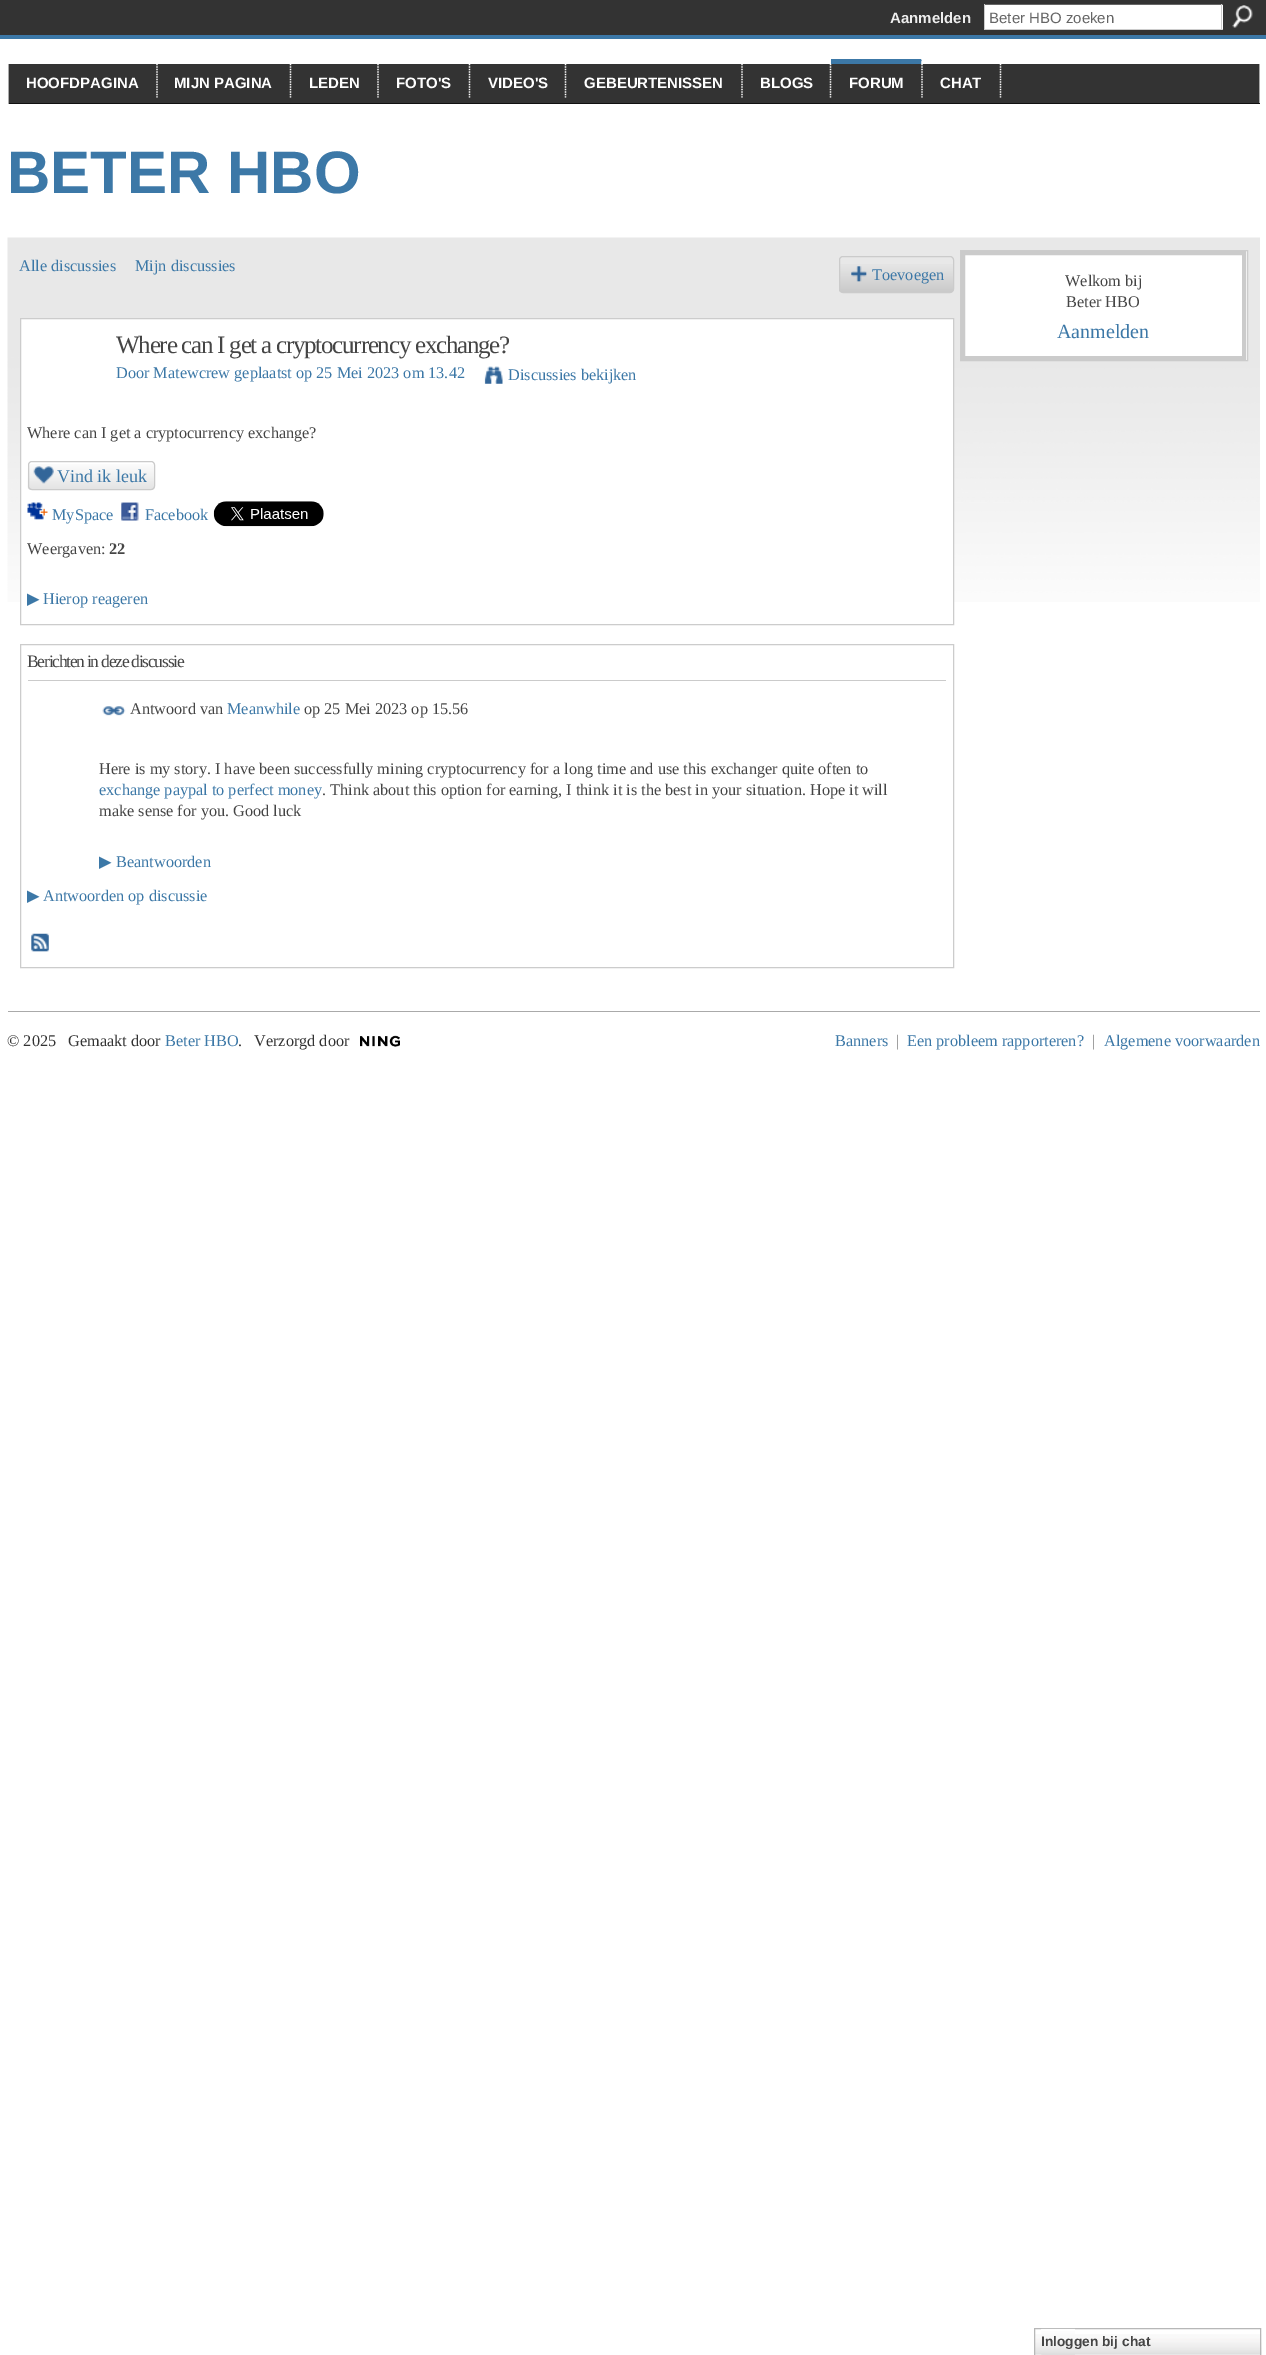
%!PS
<< /PageSize [1266 2355] >> setpagedevice
/rgb { 3 { 255 div 3 1 roll } repeat setrgbcolor } def
/font { [ exch dup neg 0 0 3 -1 roll 0 0 ] selectfont } def
/text { moveto show } def
/roundrect { 5 dict begin { /r /h /w /y /x } { exch def } forall
  x r add y moveto x w add y 2 copy h add r arct x w add y h add x 1 index r arct
  x y h add x y r arct x y 2 copy exch w add exch r arct closepath end } def
/picture { 5 dict begin { /h /w /y /x /name } { exch def } forall
  gsave x y translate w h scale
  w h 8 [w 0 0 h 0 0] name (r) file false 3 colorimage grestore end } def
0 2355 translate 1 -1 scale
4 setmiterlimit
255 255 255 rgb
0 0 1266 2355 rectfill
51 51 51 rgb
0 0 1266 35 rectfill
255 255 255 rgb
985 5 238 24 rectfill
102 102 102 rgb
984 4 239 1 rectfill
204 204 204 rgb
1221 4 1 26 rectfill
984 29 239 1 rectfill
984 4 1 26 rectfill
(img_01.rgb) 1232 5 21 23 picture
60 120 167 rgb
0 35 1266 4 rectfill
51 51 51 rgb
9 64 1250 39 rectfill
170 170 170 rgb
1259 64 1 40 rectfill
17 17 17 rgb
8 103 1252 1 rectfill
170 170 170 rgb
8 64 1 40 rectfill
255 255 255 rgb
1.2 setlinewidth
[1.25 1.25] 0 setdash
157 59 moveto 0 38.5 rlineto stroke
290.5 59 moveto 0 38.5 rlineto stroke
378 59 moveto 0 38.5 rlineto stroke
469.5 59 moveto 0 38.5 rlineto stroke
565.5 59 moveto 0 38.5 rlineto stroke
742 59 moveto 0 38.5 rlineto stroke
830.5 59 moveto 0 38.5 rlineto stroke
60 120 167 rgb
831 59 moveto 91 0 rlineto -1 5 rlineto -90 0 rlineto closepath fill
255 255 255 rgb
922 59 moveto 0 38.5 rlineto stroke
1000.5 59 moveto 0 38.5 rlineto stroke
(img_02.rgb) 7 237 1253 365 picture
(img_03.rgb) 839 264 115 29 picture
203 203 203 rgb
1 setlinewidth
[] 0 setdash
839.5 256.5 114 36 3.5 roundrect stroke
(img_04.rgb) 851 266 16 16 picture
255 255 255 rgb
21 319 932 283 rectfill
204 204 204 rgb
20.5 318.5 933 306 rectstroke
(img_05.rgb) 484 366 19 18 picture
(img_06.rgb) 27 464 128 26 picture
203 203 203 rgb
28.5 461.5 126 28 3.5 roundrect stroke
(img_07.rgb) 33 466 21 18 picture
(img_08.rgb) 27 502 21 18 picture
(img_09.rgb) 121 502 18 19 picture
(img_10.rgb) 213 501 111 26 picture
204 204 204 rgb
20.5 644.5 933 323 rectstroke
203 203 203 rgb
28 680 918 1 rectfill
(img_11.rgb) 102 706 24 10 picture
(img_12.rgb) 31 933 18 19 picture
255 255 255 rgb
965 251 282 109 rectfill
204 204 204 rgb
960.5 250.5 287 110 rectstroke
203 203 203 rgb
4 setlinewidth
963 253 281 105 rectstroke
170 170 170 rgb
8 1011 1252 1 rectfill
(img_13.rgb) 360 1035 40 12 picture
(img_14.rgb) 1035 2334 227 21 picture
183 183 183 rgb
1 setlinewidth
1034.5 2328.5 226 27 rectstroke
(img_15.rgb) 1041 2328 34 27 picture
/LiberationSans-Bold 15 font
238 238 238 rgb
(Aanmelden) 890 23 text
/LiberationSans-Regular 15 font
102 102 102 rgb
(Beter HBO zoeken) 989 23 text
/LiberationSans-Bold 15 font
255 255 255 rgb
(HOOFDPAGINA) 26 88 text
(MIJN PAGINA) 174 88 text
(LEDEN) 309 88 text
(FOTO'S) 396 88 text
(VIDEO'S) 488 88 text
(GEBEURTENISSEN) 584 88 text
(BLOGS) 760 88 text
(FORUM) 849 88 text
(CHAT) 940 88 text
/LiberationSans-Bold 60 font
60 120 167 rgb
(BETER HBO) 7 193 text
/LiberationSerif-Regular 16.25 font
(Alle discussies) 19 271 text
(Mijn discussies) 135 271 text
(Toevoegen) 872 280 text
/LiberationSerif-Regular 25 font
69 69 69 rgb
116 353 moveto -1.25 0 (Where can I get a cryptocurrency exchange?) ashow
/LiberationSerif-Regular 16.25 font
60 120 167 rgb
(Door Matewcrew geplaatst op 25 Mei 2023 om 13.42) 116 378 text
(Discussies bekijken) 508 380 text
69 69 69 rgb
(Where can I get a cryptocurrency exchange?) 27 438 text
/LiberationSerif-Regular 18 font
60 120 167 rgb
(Vind ik leuk) 57 482 text
/LiberationSerif-Regular 16.25 font
(MySpace) 52 520 text
(Facebook) 145 520 text
69 69 69 rgb
(Weergaven:) 27 554 text
/LiberationSerif-Bold 16.25 font
(22) 109 554 text
/DejaVuSans-Regular 16.25 font
60 120 167 rgb
(▶) 27 604 text
/LiberationSerif-Regular 16.25 font
(Hierop reageren) 43 604 text
/LiberationSerif-Regular 17.5 font
69 69 69 rgb
27 667 moveto -1.25 0 (Berichten in deze discussie) ashow
/LiberationSerif-Regular 16.25 font
(Antwoord van) 130 714 text
60 120 167 rgb
(Meanwhile) 227 714 text
69 69 69 rgb
(op 25 Mei 2023 op 15.56) 304 714 text
(Here is my story. I have been successfully mining cryptocurrency for a long time and use this exchanger quite often to) 99 774 text
60 120 167 rgb
(exchange paypal to perfect money) 99 795 text
69 69 69 rgb
(. Think about this option for earning, I think it is the best in your situation. Hope it will) 322 795 text
(make sense for you. Good luck) 99 816 text
/DejaVuSans-Regular 16.25 font
60 120 167 rgb
(▶) 99 867 text
/LiberationSerif-Regular 16.25 font
(Beantwoorden) 116 867 text
/DejaVuSans-Regular 16.25 font
(▶) 27 901 text
/LiberationSerif-Regular 16.25 font
(Antwoorden op discussie) 43 901 text
69 69 69 rgb
(Welkom bij) 1065 286 text
(Beter HBO) 1066 307 text
/LiberationSerif-Regular 20 font
60 120 167 rgb
(Aanmelden) 1057 338 text
/LiberationSerif-Regular 16.25 font
51 51 51 rgb
(© 2025) 7 1046 text
(Gemaakt door) 68 1046 text
60 120 167 rgb
(Beter HBO) 165 1046 text
51 51 51 rgb
(.) 238 1046 text
(Verzorgd door) 254 1046 text
60 120 167 rgb
(Banners) 835 1046 text
127 127 127 rgb
(|) 896 1046 text
60 120 167 rgb
(Een probleem rapporteren?) 907 1046 text
127 127 127 rgb
(|) 1092 1046 text
60 120 167 rgb
(Algemene voorwaarden) 1104 1046 text
/LiberationSans-Bold 13.75 font
69 69 69 rgb
(Inloggen bij chat) 1041 2346 text
showpage
